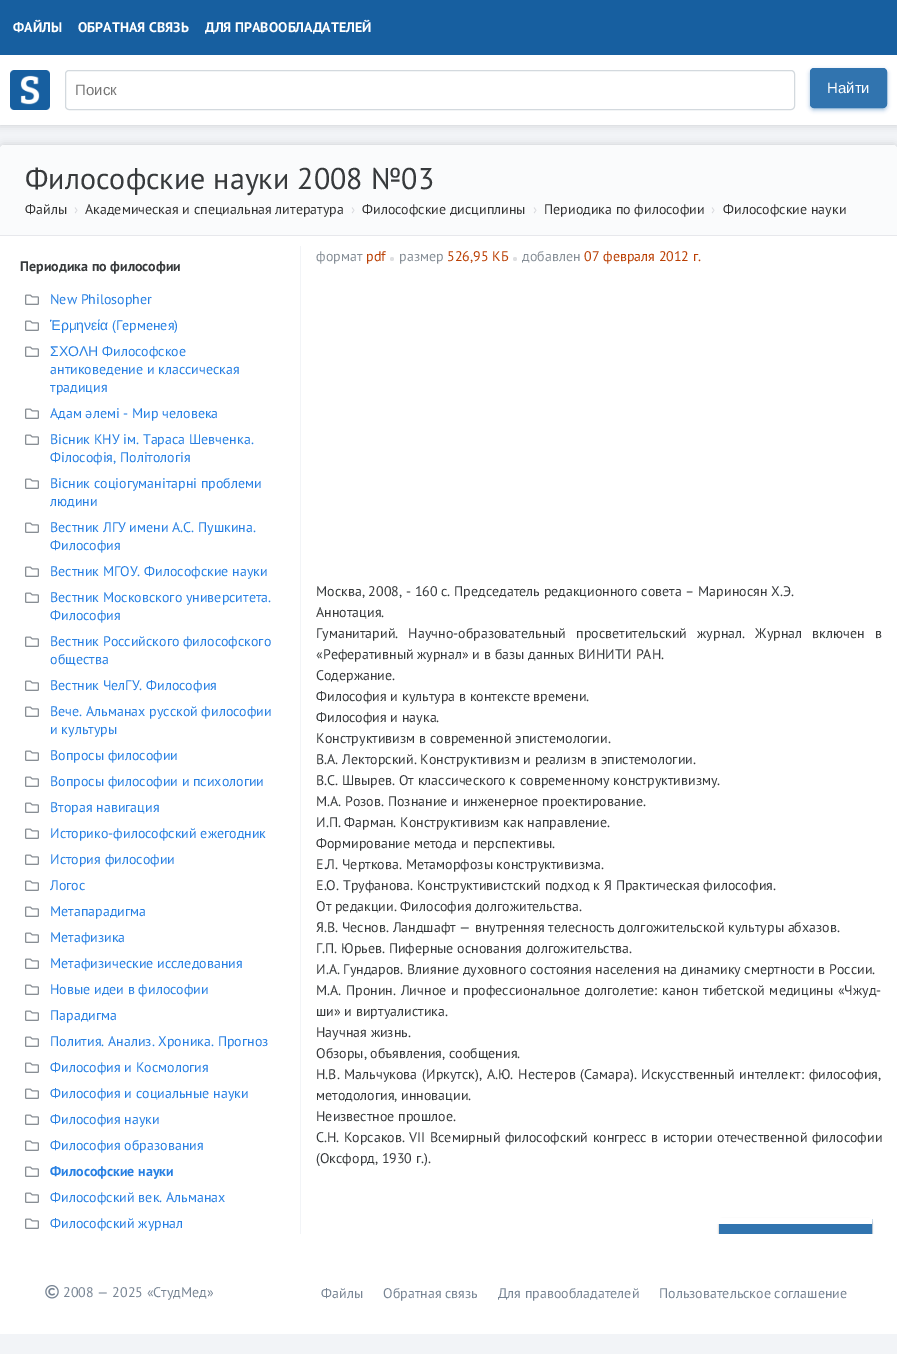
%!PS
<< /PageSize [897 1354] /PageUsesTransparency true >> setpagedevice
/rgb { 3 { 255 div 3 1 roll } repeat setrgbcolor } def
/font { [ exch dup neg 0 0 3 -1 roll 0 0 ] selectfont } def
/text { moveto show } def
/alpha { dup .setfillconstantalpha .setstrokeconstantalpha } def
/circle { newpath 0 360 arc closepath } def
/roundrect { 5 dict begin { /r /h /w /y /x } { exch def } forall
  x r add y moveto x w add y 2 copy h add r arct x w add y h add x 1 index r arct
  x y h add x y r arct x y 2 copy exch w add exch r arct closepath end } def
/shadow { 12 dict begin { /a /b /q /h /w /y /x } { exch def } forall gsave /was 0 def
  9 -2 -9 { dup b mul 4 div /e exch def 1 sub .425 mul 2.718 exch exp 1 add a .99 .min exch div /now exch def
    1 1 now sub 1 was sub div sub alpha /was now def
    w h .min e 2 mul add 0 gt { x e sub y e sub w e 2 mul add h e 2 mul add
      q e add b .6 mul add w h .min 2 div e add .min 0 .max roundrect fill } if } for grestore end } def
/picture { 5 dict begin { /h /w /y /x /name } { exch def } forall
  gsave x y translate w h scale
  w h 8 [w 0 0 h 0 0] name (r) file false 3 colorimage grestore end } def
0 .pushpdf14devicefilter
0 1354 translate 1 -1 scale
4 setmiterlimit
242 244 247 rgb
0 0 897 1354 rectfill
0 0 0 rgb
0 0 897 125 0 4 0.15 shadow
255 255 255 rgb
0 55 897 70 rectfill
23 95 160 rgb
0 0 897 55 rectfill
(img_01.rgb) 10 70 40 40 picture
211 217 222 rgb
65.5 70.5 729 39 3.5 roundrect stroke
51 122 183 rgb
810 70 77 40 4 2 0.45 shadow
49 116 175 rgb
810.5 68.5 76 39 3.5 roundrect gsave fill grestore
stroke
0 0 0 rgb
0 145 897 1150 4 4 0.15 shadow
255 255 255 rgb
0 145 897 1150 4 roundrect fill
250 251 252 rgb
5 145 moveto 887 0 rlineto 3 0 5 2 5 5 rcurveto 0 86 rlineto -897 0 rlineto 0 -86 rlineto 0 -3 2 -5 5 -5 rcurveto closepath fill
231 232 236 rgb
0 235 897 1 rectfill
(img_02.rgb) 25 294 14 11 picture
(img_02.rgb) 25 320 14 11 picture
(img_02.rgb) 25 346 14 11 picture
(img_02.rgb) 25 408 14 11 picture
(img_02.rgb) 25 434 14 11 picture
(img_02.rgb) 25 478 14 11 picture
(img_02.rgb) 25 522 14 11 picture
(img_02.rgb) 25 566 14 11 picture
(img_02.rgb) 25 592 14 11 picture
(img_02.rgb) 25 636 14 11 picture
(img_02.rgb) 25 680 14 11 picture
(img_02.rgb) 25 706 14 11 picture
(img_02.rgb) 25 750 14 11 picture
(img_02.rgb) 25 776 14 11 picture
(img_02.rgb) 25 802 14 11 picture
(img_02.rgb) 25 828 14 11 picture
(img_02.rgb) 25 854 14 11 picture
(img_02.rgb) 25 880 14 11 picture
(img_02.rgb) 25 906 14 11 picture
(img_02.rgb) 25 932 14 11 picture
(img_02.rgb) 25 958 14 11 picture
(img_02.rgb) 25 984 14 11 picture
(img_02.rgb) 25 1010 14 11 picture
(img_02.rgb) 25 1036 14 11 picture
(img_02.rgb) 25 1062 14 11 picture
(img_02.rgb) 25 1088 14 11 picture
(img_02.rgb) 25 1114 14 11 picture
(img_02.rgb) 25 1140 14 11 picture
(img_02.rgb) 25 1166 14 11 picture
(img_02.rgb) 25 1192 14 11 picture
(img_02.rgb) 25 1218 14 11 picture
242 244 247 rgb
300 246 1 988 rectfill
0 0 0 rgb
719 1221 153 39 4 1 0.24 shadow
719 1219 153 39 4 1 0.12 shadow
49 116 175 rgb
720 1224 151 10 rectfill
719.5 1219.5 152 38 rectstroke
255 255 255 rgb
717 1218 155 6 rectfill
223 224 226 rgb
392 259 2 circle fill
515 259 2 circle fill
255 255 255 rgb
0 1234 897 100 rectfill
(img_03.rgb) 45 1285 14 14 picture
/PTSans-Bold 14 font
(ФАЙЛЫ) 13 32 text
(ОБРАТНАЯ СВЯЗЬ) 78 32 text
(ДЛЯ ПРАВООБЛАДАТЕЛЕЙ) 205 32 text
/LiberationSans-Regular 15 font
117 117 117 rgb
(Поиск) 75 95 text
255 255 255 rgb
(Найти) 827 93 text
/PTSans-Regular 30 font
55 58 60 rgb
(Философские науки 2008 №03) 25 189 text
/PTSans-Regular 14 font
51 51 51 rgb
(Файлы) 25 214 text
215 216 220 rgb
(›) 74 214 text
51 51 51 rgb
(Академическая и специальная литература) 85 214 text
215 216 220 rgb
(›) 351 214 text
51 51 51 rgb
(Философские дисциплины) 362 214 text
215 216 220 rgb
(›) 533 214 text
51 51 51 rgb
(Периодика по философии) 544 214 text
215 216 220 rgb
(›) 711 214 text
51 51 51 rgb
(Философские науки) 723 214 text
/PTSans-Bold 14 font
55 58 60 rgb
(Периодика по философии) 20 271 text
/PTSans-Regular 14 font
39 128 227 rgb
(New Philosopher) 50 304 text
/LiberationSans-Regular 14 font
(Ἑρ) 50 330 text
/PTSans-Regular 14 font
(μ) 69 330 text
/LiberationSans-Regular 14 font
(ηνεία) 76 330 text
/PTSans-Regular 14 font
(\(Герменея\)) 112 330 text
/LiberationSans-Regular 14 font
(ΣΧΟΛΗ) 50 356 text
/PTSans-Regular 14 font
(Философское) 102 356 text
(антиковедение и классическая) 50 374 text
(традиция) 50 392 text
(Адам әлемi - Мир человека) 50 418 text
(Вісник КНУ ім. Тараса Шевченка.) 50 444 text
(Філософія, Політологія) 50 462 text
(Вісник соціогуманітарні проблеми) 50 488 text
(людини) 50 506 text
(Вестник ЛГУ имени А.С. Пушкина.) 50 532 text
(Философия) 50 550 text
(Вестник МГОУ. Философские науки) 50 576 text
(Вестник Московского университета.) 50 602 text
(Философия) 50 620 text
(Вестник Российского философского) 50 646 text
(общества) 50 664 text
(Вестник ЧелГУ. Философия) 50 690 text
(Вече. Альманах русской философии) 50 716 text
(и культуры) 50 734 text
(Вопросы философии) 50 760 text
(Вопросы философии и психологии) 50 786 text
(Вторая навигация) 50 812 text
(Историко-философский ежегодник) 50 838 text
(История философии) 50 864 text
(Логос) 50 890 text
(Метапарадигма) 50 916 text
(Метафизика) 50 942 text
(Метафизические исследования) 50 968 text
(Новые идеи в философии) 50 994 text
(Парадигма) 50 1020 text
(Полития. Анализ. Хроника. Прогноз) 50 1046 text
(Философия и Космология) 50 1072 text
(Философия и социальные науки) 50 1098 text
(Философия науки) 50 1124 text
(Философия образования) 50 1150 text
/PTSans-Bold 14 font
(Философские науки) 50 1176 text
/PTSans-Regular 14 font
(Философский век. Альманах) 50 1202 text
(Философский журнал) 50 1228 text
134 142 150 rgb
(формат) 316 261 text
186 63 3 rgb
(pdf) 366 261 text
134 142 150 rgb
(размер) 399 261 text
186 63 3 rgb
(526,95 КБ) 447 261 text
134 142 150 rgb
(добавлен) 522 261 text
186 63 3 rgb
(07 февраля 2012 г.) 584 261 text
55 58 60 rgb
(Москва, 2008, - 160 с. Председатель редакционного совета – Мариносян Х.Э.) 316 596 text
(Аннотация.) 316 617 text
316 638 moveto 6.5 0 32 (Гуманитарий. Научно-образовательный просветительский журнал. Журнал включен в) widthshow
(«Реферативный журнал» и в базы данных ВИНИТИ РАН.) 316 659 text
(Содержание.) 316 680 text
(Философия и культура в контексте времени.) 316 701 text
(Философия и наука.) 316 722 text
(Конструктивизм в современной эпистемологии.) 316 743 text
(В.А. Лекторский. Конструктивизм и реализм в эпистемологии.) 316 764 text
(В.С. Швырев. От классического к современному конструктивизму.) 316 785 text
(М.А. Розов. Познание и инженерное проектирование.) 316 806 text
(И.П. Фарман. Конструктивизм как направление.) 316 827 text
(Формирование метода и перспективы.) 316 848 text
(Е.Л. Черткова. Метаморфозы конструктивизма.) 316 869 text
(Е.О. Труфанова. Конструктивистский подход к Я Практическая философия.) 316 890 text
(От редакции. Философия долгожительства.) 316 911 text
(Я.В. Чеснов. Ландшафт — внутренняя телесность долгожительской культуры абхазов.) 316 932 text
(Г.П. Юрьев. Пиферные основания долгожительства.) 316 953 text
(И.А. Гундаров. Влияние духовного состояния населения на динамику смертности в России.) 316 974 text
316 995 moveto 1 0 32 (М.А. Пронин. Личное и профессиональное долголетие: канон тибетской медицины «Чжуд-) widthshow
(ши» и виртуалистика.) 316 1016 text
(Научная жизнь.) 316 1037 text
(Обзоры, объявления, сообщения.) 316 1058 text
316 1079 moveto 1 0 32 (Н.В. Мальчукова \(Иркутск\), А.Ю. Нестеров \(Самара\). Искусственный интеллект: философия,) widthshow
(методология, инновации.) 316 1100 text
(Неизвестное прошлое.) 316 1121 text
316 1142 moveto 0.75 0 32 (С.Н. Корсаков. VII Всемирный философский конгресс в истории отечественной философии) widthshow
(\(Оксфорд, 1930 г.\).) 316 1163 text
120 133 148 rgb
(2008 — 2025 «СтудМед») 63 1297 text
(Файлы) 321 1298 text
(Обратная связь) 383 1298 text
(Для правообладателей) 498 1298 text
(Пользовательское соглашение) 659 1298 text
.poppdf14devicefilter showpage
